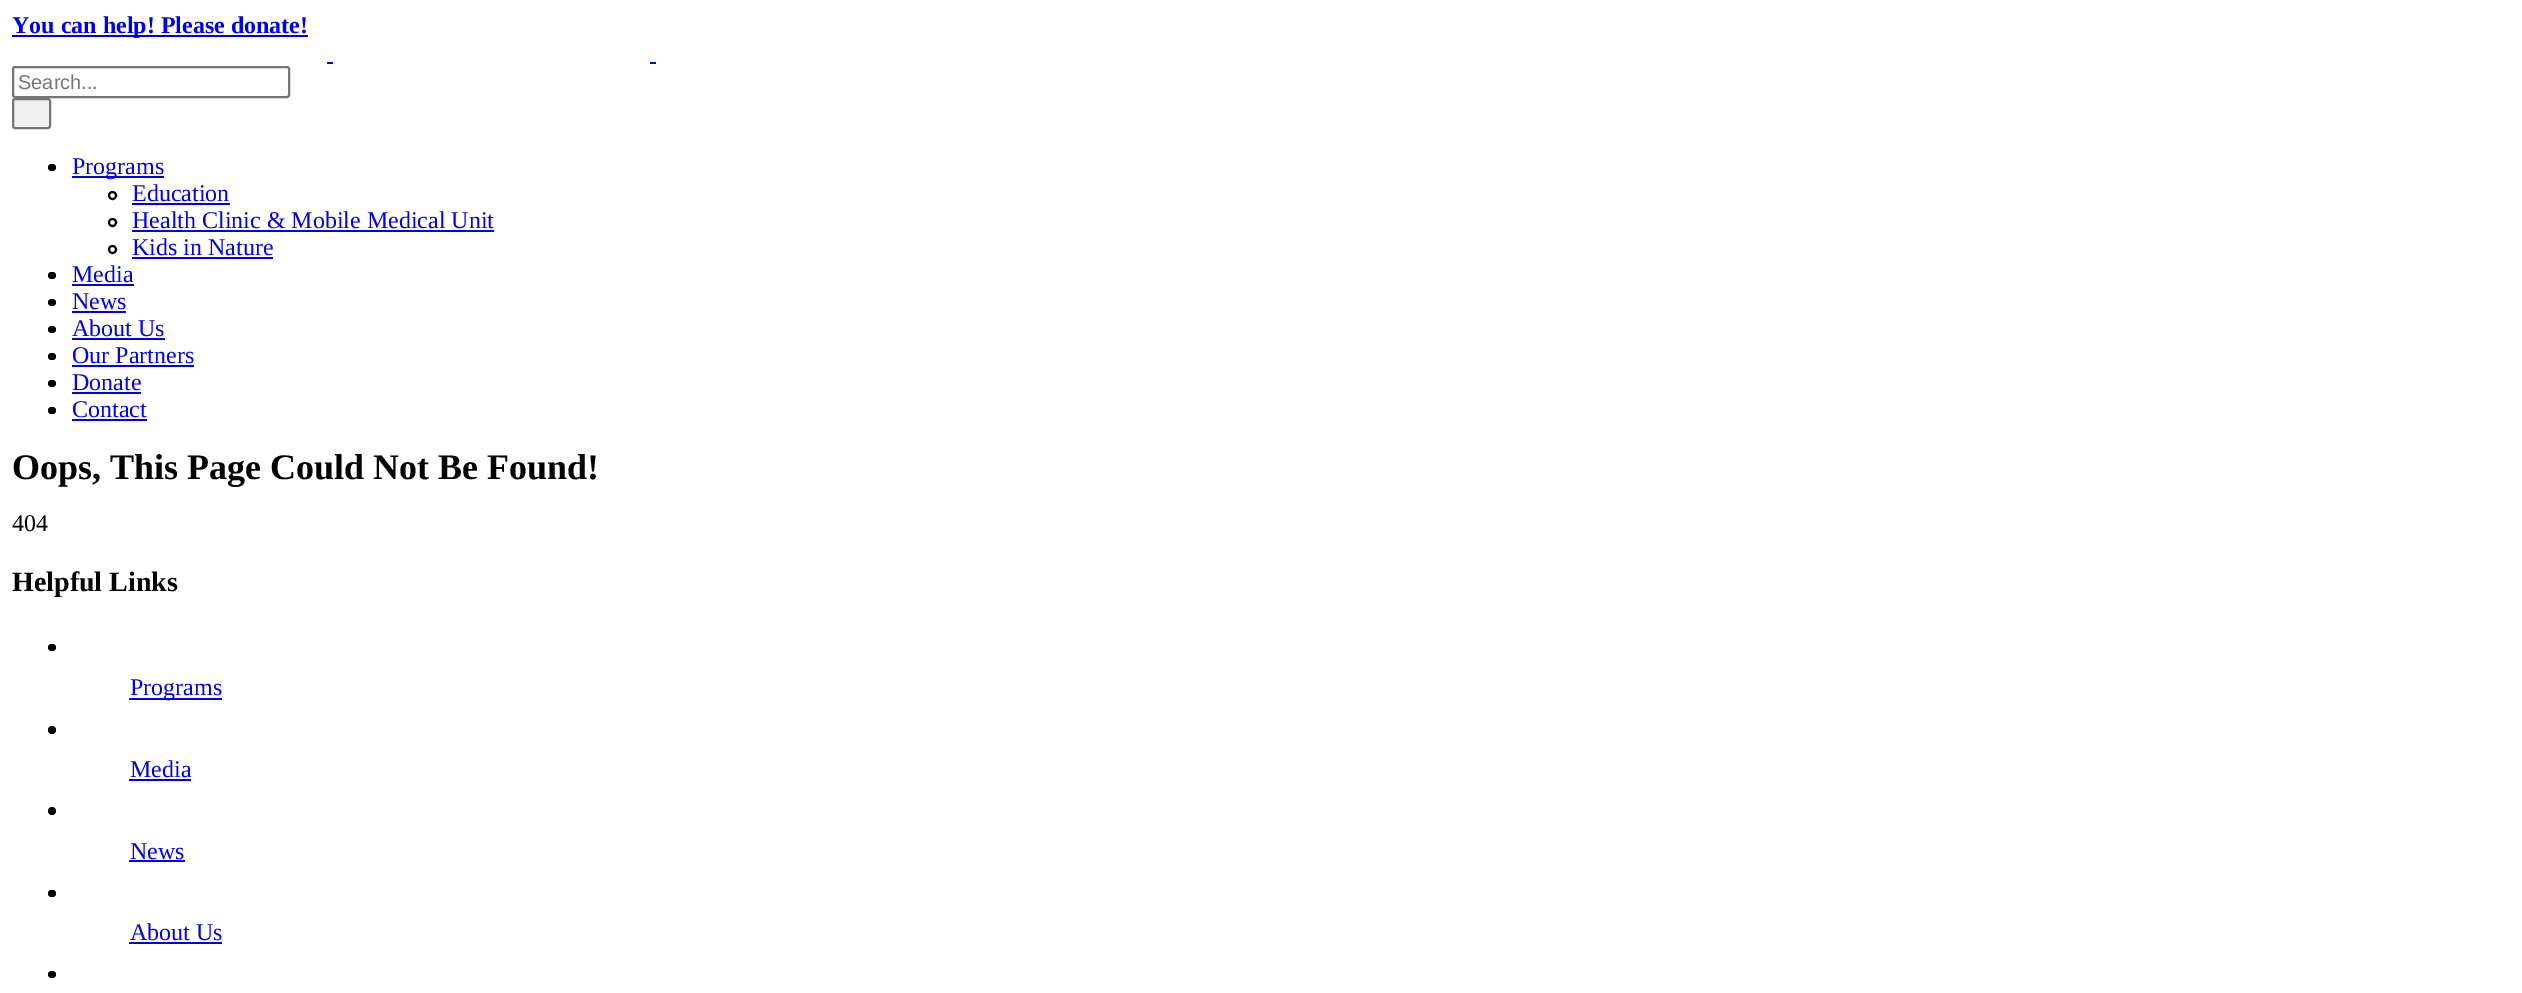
%!PS
<< /PageSize [2522 993] >> setpagedevice
/rgb { 3 { 255 div 3 1 roll } repeat setrgbcolor } def
/font { [ exch dup neg 0 0 3 -1 roll 0 0 ] selectfont } def
/text { moveto show } def
/circle { newpath 0 360 arc closepath } def
/roundrect { 5 dict begin { /r /h /w /y /x } { exch def } forall
  x r add y moveto x w add y 2 copy h add r arct x w add y h add x 1 index r arct
  x y h add x y r arct x y 2 copy exch w add exch r arct closepath end } def
0 993 translate 1 -1 scale
4 setmiterlimit
255 255 255 rgb
0 0 2522 993 rectfill
0 0 238 rgb
12 35 296 2 rectfill
327 62 6 2 rectfill
650 62 6 2 rectfill
118 118 118 rgb
2 setlinewidth
13 67 276 30 2 roundrect stroke
239 239 239 rgb
13 99 37 29 2 roundrect gsave fill grestore
118 118 118 rgb
stroke
0 0 0 rgb
48 164 8 7 3.5 roundrect fill
0 0 238 rgb
72 176 92 2 rectfill
0 0 0 rgb
112.5 195.5 3.5 circle stroke
0 0 238 rgb
132 203 98 2 rectfill
0 0 0 rgb
112.5 222.5 3.5 circle stroke
0 0 238 rgb
132 230 362 2 rectfill
0 0 0 rgb
112.5 249.5 3.5 circle stroke
0 0 238 rgb
132 257 141 2 rectfill
0 0 0 rgb
48 272 8 7 3.5 roundrect fill
0 0 238 rgb
72 284 62 2 rectfill
0 0 0 rgb
48 299 8 7 3.5 roundrect fill
0 0 238 rgb
72 311 54 2 rectfill
0 0 0 rgb
48 326 8 7 3.5 roundrect fill
0 0 238 rgb
72 338 93 2 rectfill
0 0 0 rgb
48 353 8 7 3.5 roundrect fill
0 0 238 rgb
72 365 122 2 rectfill
0 0 0 rgb
48 380 8 7 3.5 roundrect fill
0 0 238 rgb
72 392 69 2 rectfill
0 0 0 rgb
48 407 8 7 3.5 roundrect fill
0 0 238 rgb
72 419 75 2 rectfill
0 0 0 rgb
48 644 8 7 3.5 roundrect fill
0 0 238 rgb
129 698 93 2 rectfill
0 0 0 rgb
52 730 4 circle fill
0 0 238 rgb
129 779 62 2 rectfill
0 0 0 rgb
52 811 4 circle fill
0 0 238 rgb
129 860 56 2 rectfill
0 0 0 rgb
48 890 8 7 3.5 roundrect fill
0 0 238 rgb
129 942 93 2 rectfill
0 0 0 rgb
48 971 8 7 3.5 roundrect fill
/LiberationSerif-Bold 24 font
0 0 238 rgb
(You can help! Please donate!) 12 33 text
/LiberationSans-Regular 20 font
117 117 117 rgb
(Search...) 18 89 text
/LiberationSerif-Regular 24 font
0 0 238 rgb
(Programs) 72 174 text
(Education) 132 201 text
(Health Clinic & Mobile Medical Unit) 132 228 text
(Kids in Nature) 132 255 text
(Media) 72 282 text
(News) 72 309 text
(About Us) 72 336 text
(Our Partners) 72 363 text
(Donate) 72 390 text
(Contact) 72 417 text
/LiberationSerif-Bold 36 font
0 0 0 rgb
(Oops, This Page Could Not Be Found!) 12 479 text
/LiberationSerif-Regular 24 font
(404) 12 531 text
/LiberationSerif-Bold 28 font
(Helpful Links) 12 591 text
/LiberationSerif-Regular 24 font
0 0 238 rgb
(Programs) 130 695 text
(Media) 130 777 text
(News) 130 859 text
(About Us) 130 940 text
showpage
